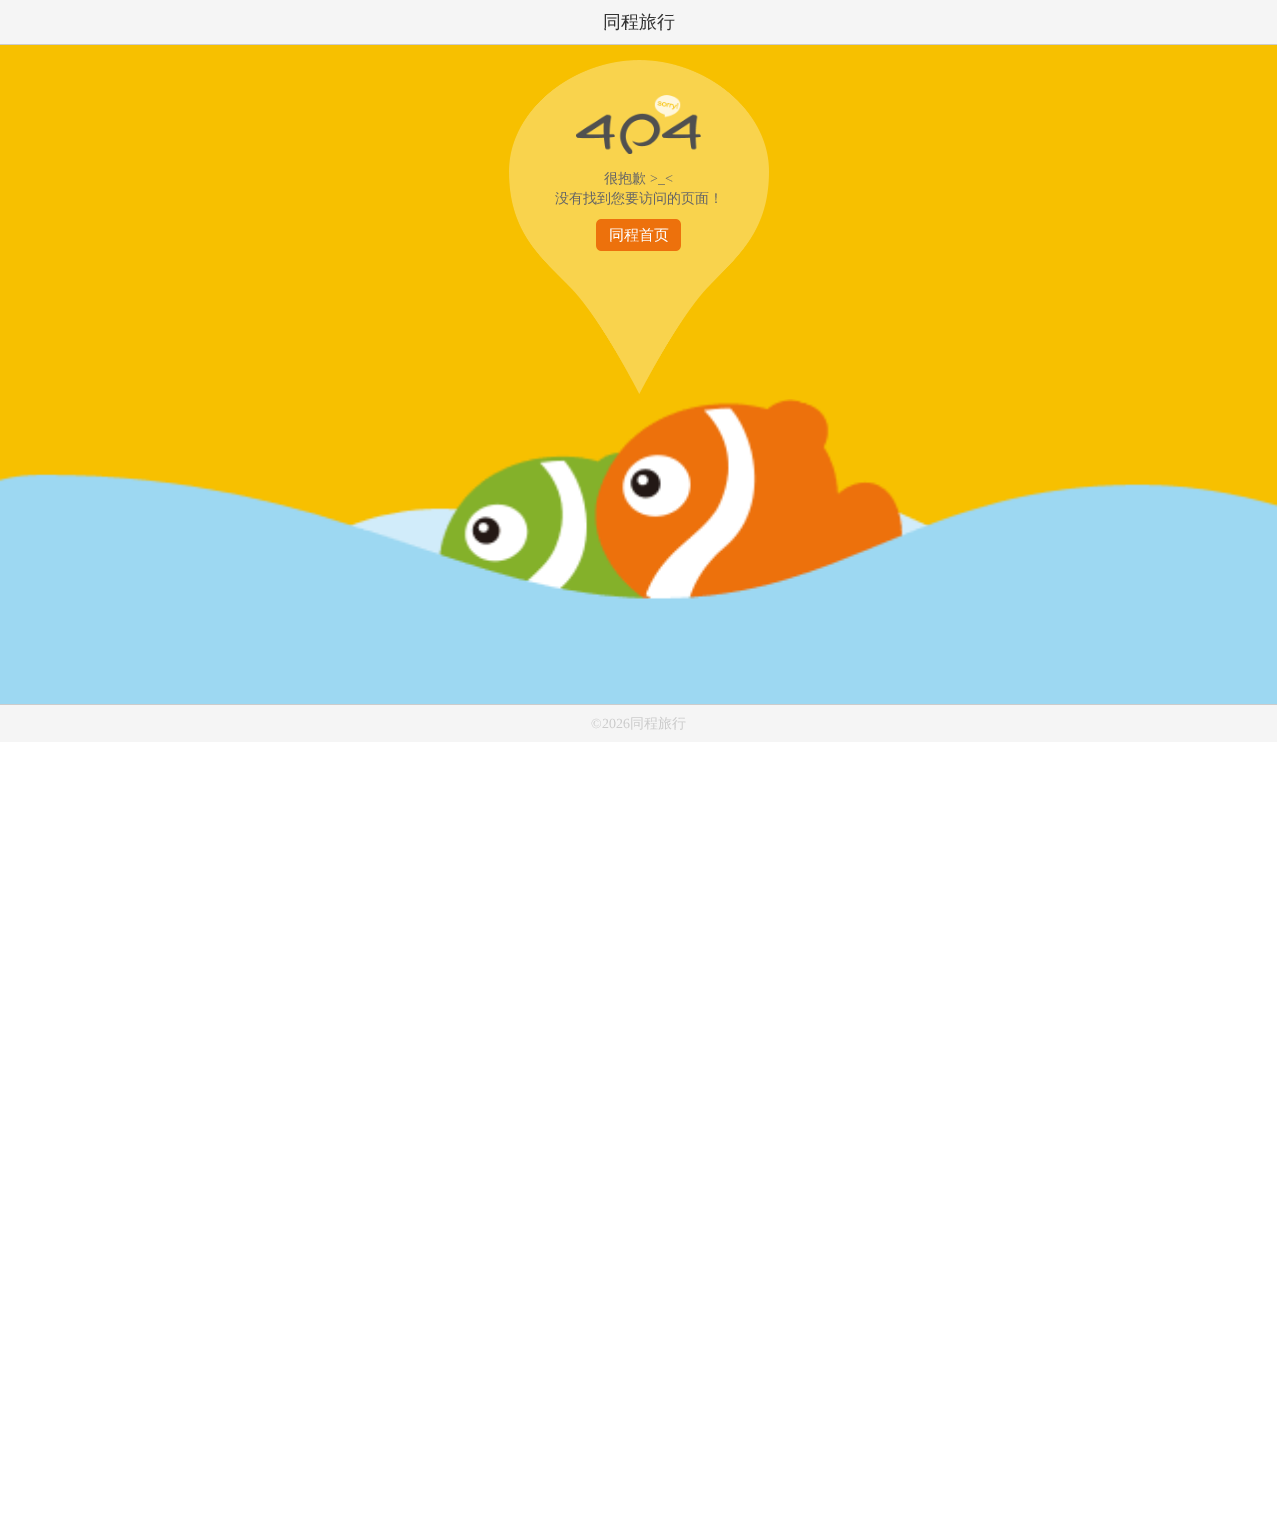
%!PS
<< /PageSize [1277 1515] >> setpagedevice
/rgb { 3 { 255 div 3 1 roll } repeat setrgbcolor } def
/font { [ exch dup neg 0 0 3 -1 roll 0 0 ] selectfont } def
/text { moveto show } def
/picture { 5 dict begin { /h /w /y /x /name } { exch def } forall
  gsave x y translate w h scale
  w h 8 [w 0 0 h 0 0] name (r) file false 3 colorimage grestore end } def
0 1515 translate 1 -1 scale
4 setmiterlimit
255 255 255 rgb
0 0 1277 1515 rectfill
245 245 245 rgb
0 0 1277 44 rectfill
204 204 204 rgb
0 44 1277 1 rectfill
247 192 0 rgb
0 45 1277 354 rectfill
(img_01.rgb) 509 60 260 334 picture
(img_02.rgb) 576 95 125 59 picture
(img_03.rgb) 596 219 85 32 picture
(img_04.rgb) 0 399 1277 305 picture
245 245 245 rgb
0 705 1277 37 rectfill
204 204 204 rgb
0 704 1277 1 rectfill
/WenQuanYiZenHei-Medium 18 font
51 51 51 rgb
(同程旅行) 603 28 text
/WenQuanYiZenHei-Medium 14 font
102 102 102 rgb
(很抱歉) 604 183 text
/LiberationSerif-Regular 14 font
(>_<) 650 183 text
/WenQuanYiZenHei-Medium 14 font
(没有找到您要访问的页面！) 555 203 text
/WenQuanYiZenHei-Medium 15 font
255 255 255 rgb
(同程首页) 609 240 text
/LiberationSerif-Regular 14 font
204 204 204 rgb
(©2026) 591 728 text
/WenQuanYiZenHei-Medium 14 font
(同程旅行) 630 728 text
showpage
